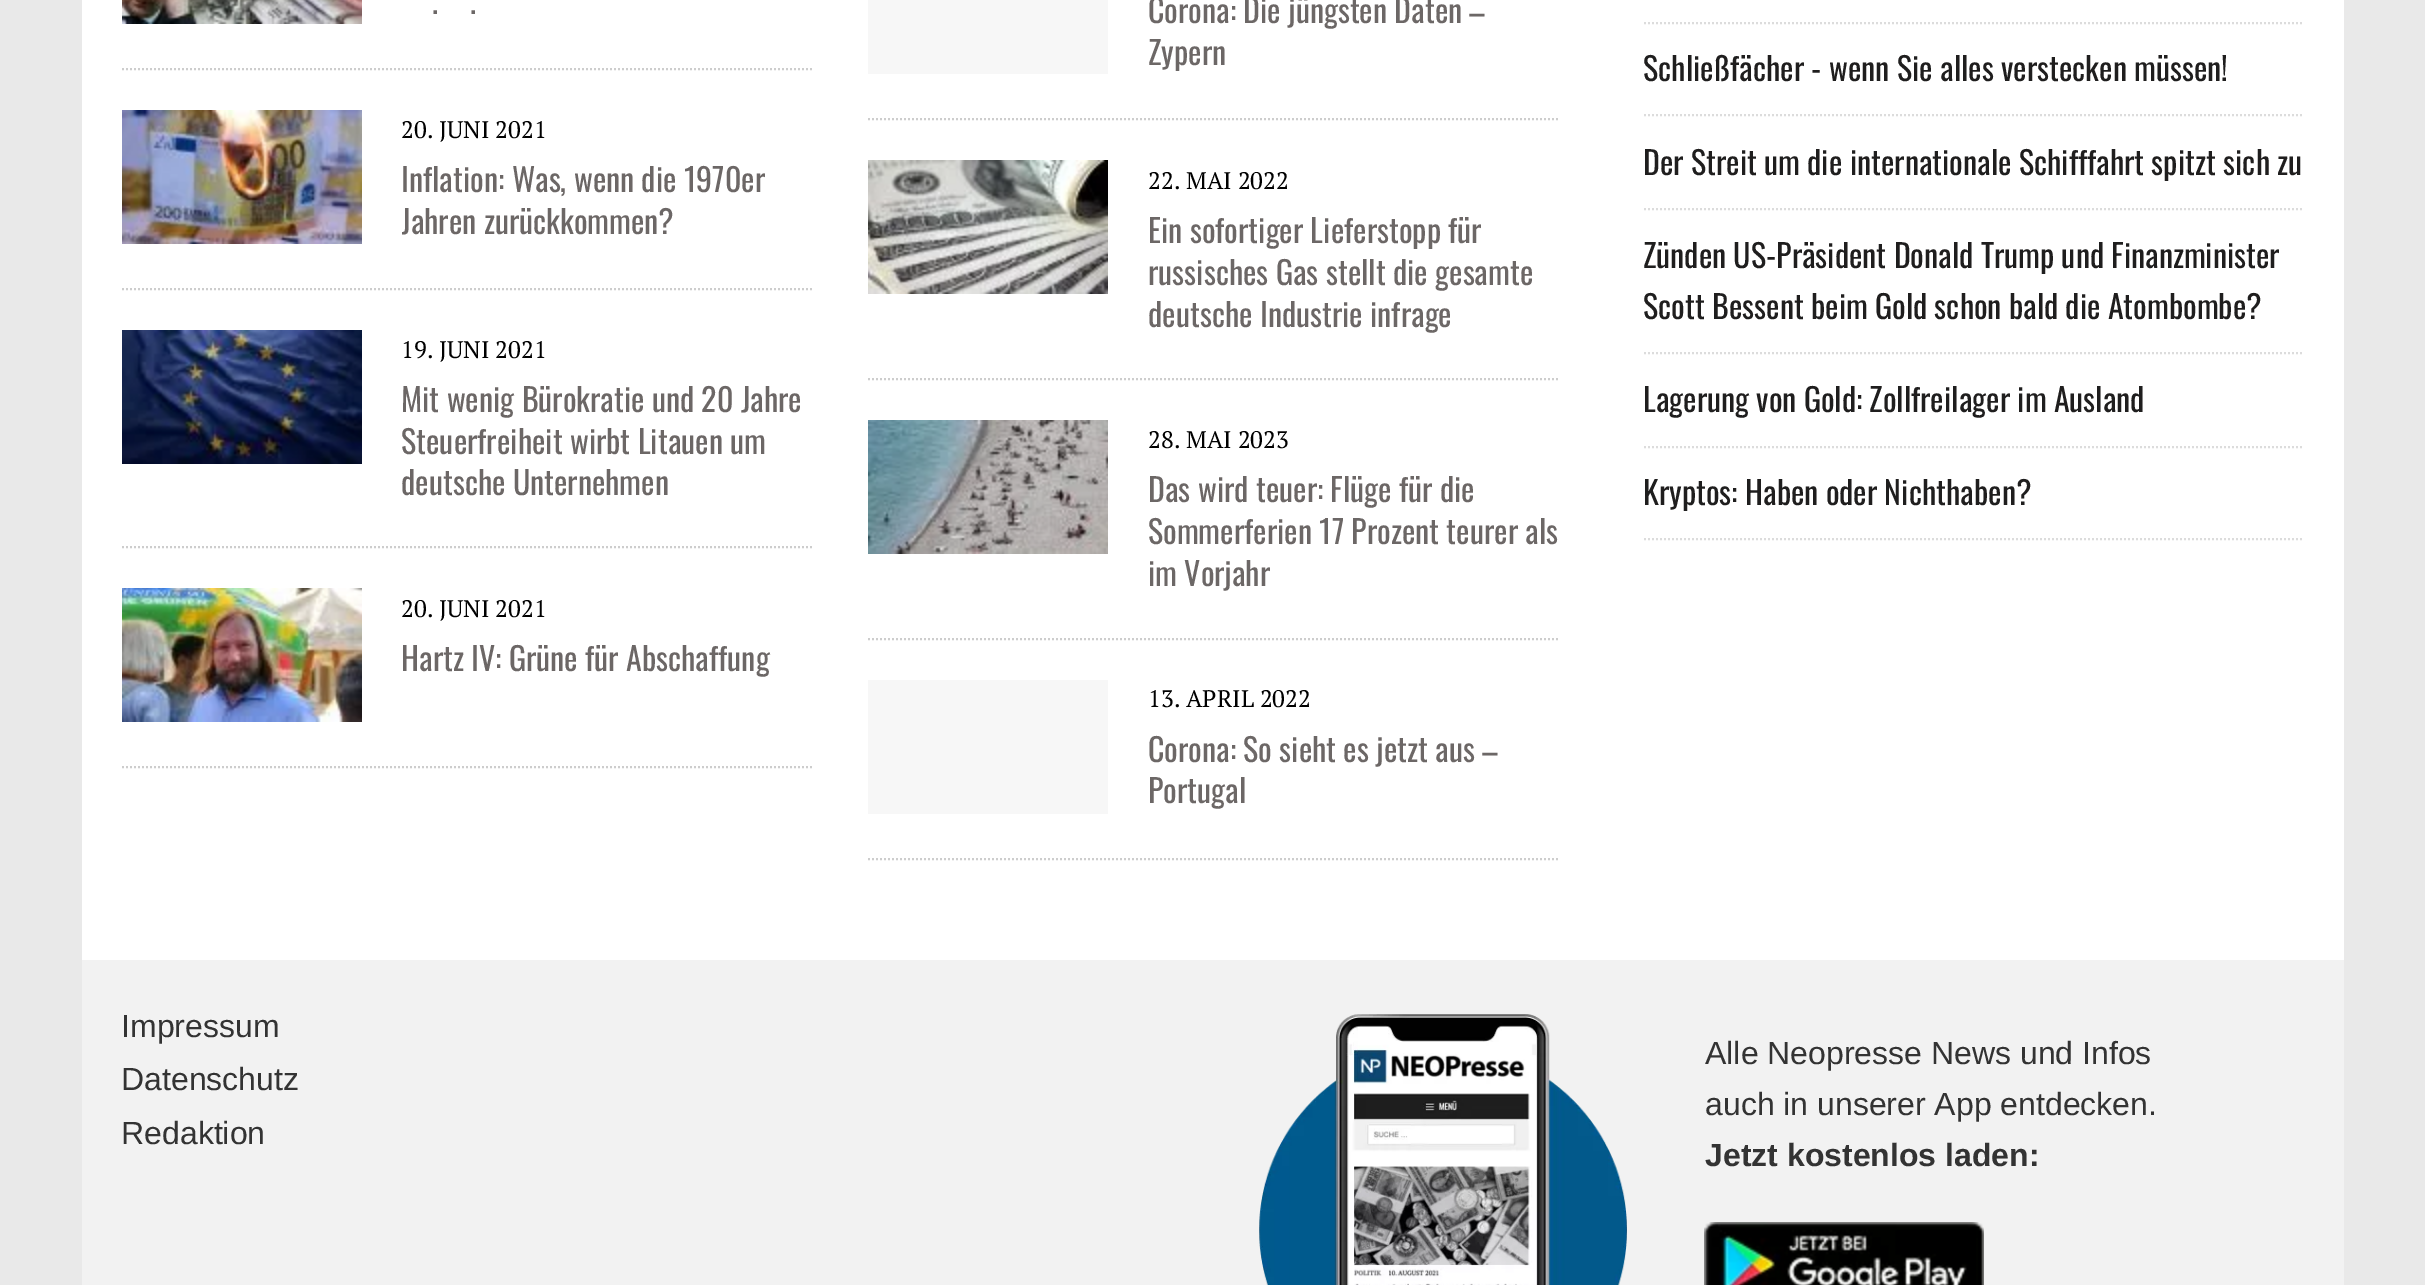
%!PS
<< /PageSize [2425 1285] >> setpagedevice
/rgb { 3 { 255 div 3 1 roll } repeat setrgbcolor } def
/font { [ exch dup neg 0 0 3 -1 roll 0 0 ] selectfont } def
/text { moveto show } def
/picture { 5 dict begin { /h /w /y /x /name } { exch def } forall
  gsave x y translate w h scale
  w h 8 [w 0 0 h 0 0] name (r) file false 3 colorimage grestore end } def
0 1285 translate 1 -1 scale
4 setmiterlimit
233 233 233 rgb
0 0 2425 1285 rectfill
255 255 255 rgb
82 0 2262 960 rectfill
(img_01.rgb) 122 0 240 24 picture
205 205 205 rgb
2 setlinewidth
[2 2] 0 setdash
122 69 moveto 690 0 rlineto stroke
(img_02.rgb) 122 110 240 134 picture
122 289 moveto 690 0 rlineto stroke
(img_03.rgb) 122 330 240 134 picture
122 547 moveto 690 0 rlineto stroke
(img_04.rgb) 122 588 240 134 picture
122 767 moveto 690 0 rlineto stroke
247 247 247 rgb
868 0 240 74 rectfill
205 205 205 rgb
868 119 moveto 690 0 rlineto stroke
(img_05.rgb) 868 160 240 134 picture
868 379 moveto 690 0 rlineto stroke
(img_06.rgb) 868 420 240 134 picture
868 639 moveto 690 0 rlineto stroke
247 247 247 rgb
868 680 240 134 rectfill
205 205 205 rgb
868 859 moveto 690 0 rlineto stroke
220 220 220 rgb
1644 23 moveto 660 0 rlineto stroke
1644 115 moveto 660 0 rlineto stroke
1644 209 moveto 660 0 rlineto stroke
1644 353 moveto 660 0 rlineto stroke
1644 447 moveto 660 0 rlineto stroke
1644 539 moveto 660 0 rlineto stroke
242 242 242 rgb
82 960 2262 325 rectfill
(img_07.rgb) 1259 1014 368 271 picture
(img_08.rgb) 1704 1222 280 63 picture
/Oswald-Regular 32 font
108 103 102 rgb
(.) 432 14 text
(.) 470 14 text
/PTSerif-Regular 24 font
0 0 0 rgb
(20. JUNI 2021) 401 138 text
/Oswald-Regular 32 font
108 103 102 rgb
(Inflation: Was, wenn die 1970er) 401 192 text
gsave
402 158 410 84 rectclip
(Jahren zurückkommen?) 401 234 text
grestore
/PTSerif-Regular 24 font
0 0 0 rgb
(19. JUNI 2021) 401 358 text
/Oswald-Regular 32 font
108 103 102 rgb
(Mit wenig Bürokratie und 20 Jahre) 401 412 text
(Steuerfreiheit wirbt Litauen um) 401 454 text
(deutsche Unternehmen) 401 495 text
/PTSerif-Regular 24 font
0 0 0 rgb
(20. JUNI 2021) 401 617 text
/Oswald-Regular 32 font
108 103 102 rgb
(Hartz IV: Grüne für Abschaffung) 401 671 text
(Corona: Die jüngsten Daten –) 1148 23 text
(Zypern) 1148 65 text
/PTSerif-Regular 24 font
0 0 0 rgb
(22. MAI 2022) 1148 189 text
/Oswald-Regular 32 font
108 103 102 rgb
(Ein sofortiger Lieferstopp für) 1148 243 text
(russisches Gas stellt die gesamte) 1148 285 text
(deutsche Industrie infrage) 1148 327 text
/PTSerif-Regular 24 font
0 0 0 rgb
(28. MAI 2023) 1148 448 text
/Oswald-Regular 32 font
108 103 102 rgb
(Das wird teuer: Flüge für die) 1148 502 text
(Sommerferien 17 Prozent teurer als) 1148 544 text
(im Vorjahr) 1148 586 text
/PTSerif-Regular 24 font
0 0 0 rgb
(13. APRIL 2022) 1148 707 text
/Oswald-Regular 32 font
108 103 102 rgb
(Corona: So sieht es jetzt aus –) 1148 762 text
(Portugal) 1148 803 text
31 30 30 rgb
(Schließfächer - wenn Sie alles verstecken müssen!) 1643 81 text
(Der Streit um die internationale Schifffahrt spitzt sich zu) 1643 175 text
(Zünden US-Präsident Donald Trump und Finanzminister) 1643 268 text
(Scott Bessent beim Gold schon bald die Atombombe?) 1643 319 text
(Lagerung von Gold: Zollfreilager im Ausland) 1643 412 text
(Kryptos: Haben oder Nichthaben?) 1643 505 text
/LiberationSans-Regular 32 font
51 51 51 rgb
(Impressum) 121 1037 text
(Datenschutz) 121 1090 text
(Redaktion) 121 1144 text
(Alle Neopresse News und Infos) 1705 1064 text
(auch in unserer App entdecken.) 1705 1115 text
/LiberationSans-Bold 32 font
(Jetzt kostenlos laden:) 1705 1166 text
showpage
